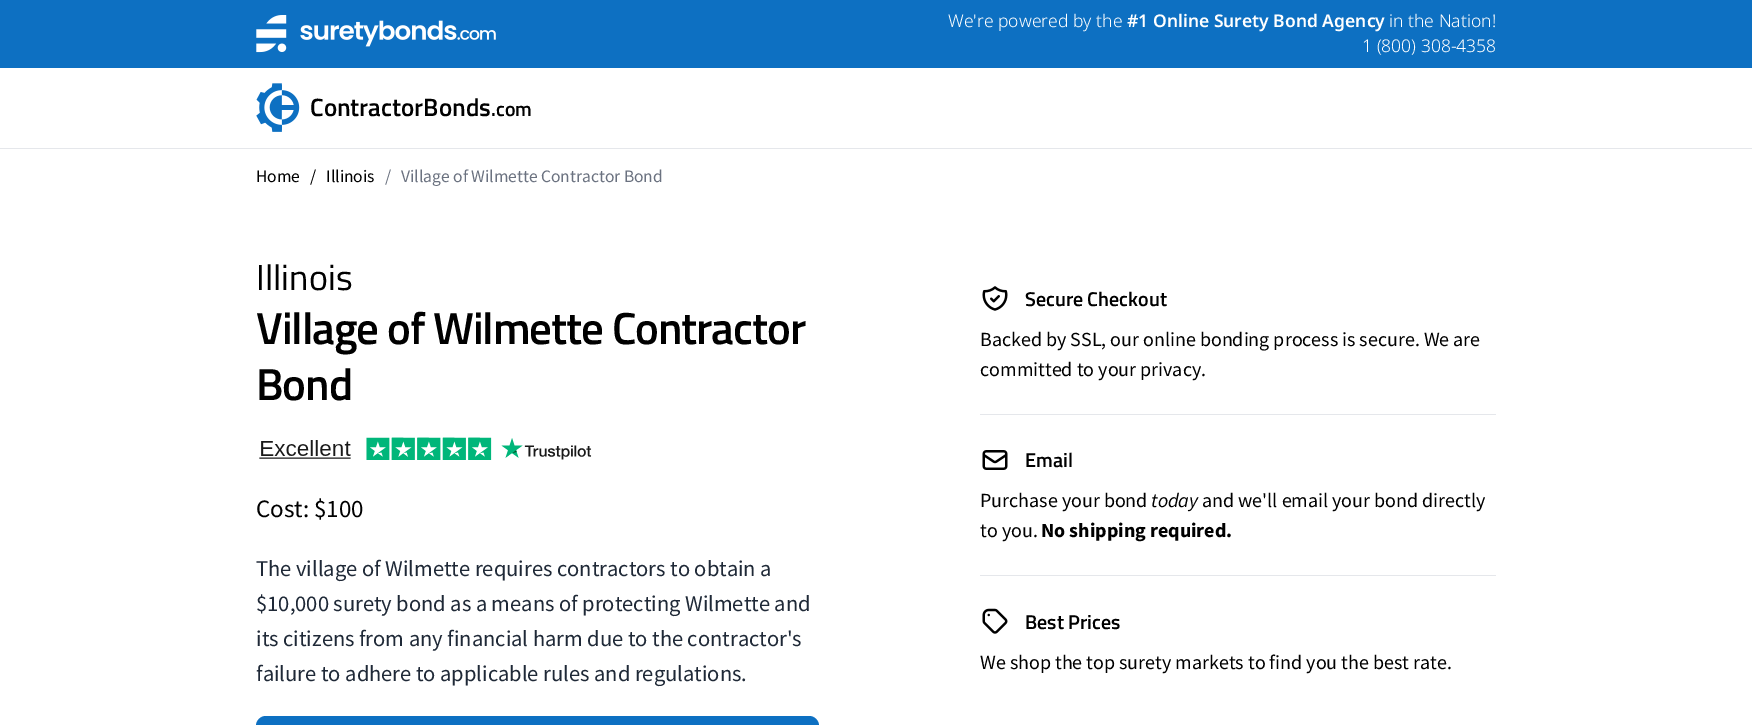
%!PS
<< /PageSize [1752 725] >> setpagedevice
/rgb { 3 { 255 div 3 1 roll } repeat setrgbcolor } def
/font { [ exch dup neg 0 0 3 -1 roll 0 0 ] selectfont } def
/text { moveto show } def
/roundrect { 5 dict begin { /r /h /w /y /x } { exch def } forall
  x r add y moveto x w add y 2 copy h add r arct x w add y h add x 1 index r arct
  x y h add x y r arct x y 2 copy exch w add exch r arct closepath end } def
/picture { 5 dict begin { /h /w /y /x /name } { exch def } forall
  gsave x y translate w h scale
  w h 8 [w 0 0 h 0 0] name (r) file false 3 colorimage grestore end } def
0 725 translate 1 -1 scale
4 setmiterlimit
255 255 255 rgb
0 0 1752 725 rectfill
13 112 194 rgb
0 0 1752 68 rectfill
(img_01.rgb) 256 15 240 38 picture
229 231 235 rgb
0 148 1752 1 rectfill
(img_02.rgb) 256 83 44 49 picture
(img_03.rgb) 259 437 333 23 picture
13 112 194 rgb
256 716 563 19 10 roundrect fill
(img_04.rgb) 982 286 26 25 picture
229 231 235 rgb
980 414 516 1 rectfill
(img_05.rgb) 982 450 26 20 picture
980 575 516 1 rectfill
(img_06.rgb) 982 608 26 26 picture
/NotoSans-Light 17.5 font
255 255 255 rgb
(We're powered by the) 948 27 text
/NotoSans-SemiBold 17.5 font
(#1 Online Surety Bond Agency) 1127 27 text
/NotoSans-Light 17.5 font
(in the Nation!) 1389 27 text
(1 \(800\) 308-4358) 1362 52 text
/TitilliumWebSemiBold-SemiBold 25 font
0 0 0 rgb
(ContractorBonds) 310 116 text
/TitilliumWebSemiBold-SemiBold 20 font
(.com) 491 116 text
/SourceSansPro-Regular 17.5 font
(Home) 256 182 text
(/) 310 182 text
(Illinois) 326 182 text
107 114 128 rgb
(/) 385 182 text
(Village of Wilmette Contractor Bond) 401 182 text
/TitilliumWeb-Regular 36 font
0 0 0 rgb
(Illinois) 256 290 text
/TitilliumWebSemiBold-SemiBold 45 font
256 344 moveto -1.1 0 (Village of Wilmette Contractor) ashow
256 400 moveto -1.1 0 (Bond) ashow
/SourceSansPro-Regular 25 font
(Cost: $100) 256 517 text
/SourceSansPro-Regular 22.5 font
31 41 55 rgb
(The village of Wilmette requires contractors to obtain a) 256 576 text
($10,000 surety bond as a means of protecting Wilmette and) 256 611 text
(its citizens from any financial harm due to the contractor's) 256 646 text
(failure to adhere to applicable rules and regulations.) 256 681 text
/TitilliumWebSemiBold-SemiBold 20 font
0 0 0 rgb
(Secure Checkout) 1025 306 text
/SourceSansPro-Regular 20 font
(Backed by SSL, our online bonding process is secure. We are) 980 346 text
(committed to your privacy.) 980 376 text
/TitilliumWebSemiBold-SemiBold 20 font
(Email) 1025 467 text
/SourceSansPro-Regular 20 font
(Purchase your bond) 980 507 text
/SourceSansPro-Italic 20 font
(today) 1151 507 text
/SourceSansPro-Regular 20 font
(and we'll email your bond directly) 1202 507 text
(to you.) 980 537 text
/SourceSansPro-Bold 20 font
(No shipping required.) 1041 537 text
/TitilliumWebSemiBold-SemiBold 20 font
(Best Prices) 1025 629 text
/SourceSansPro-Regular 20 font
(We shop the top surety markets to find you the best rate.) 980 669 text
showpage
